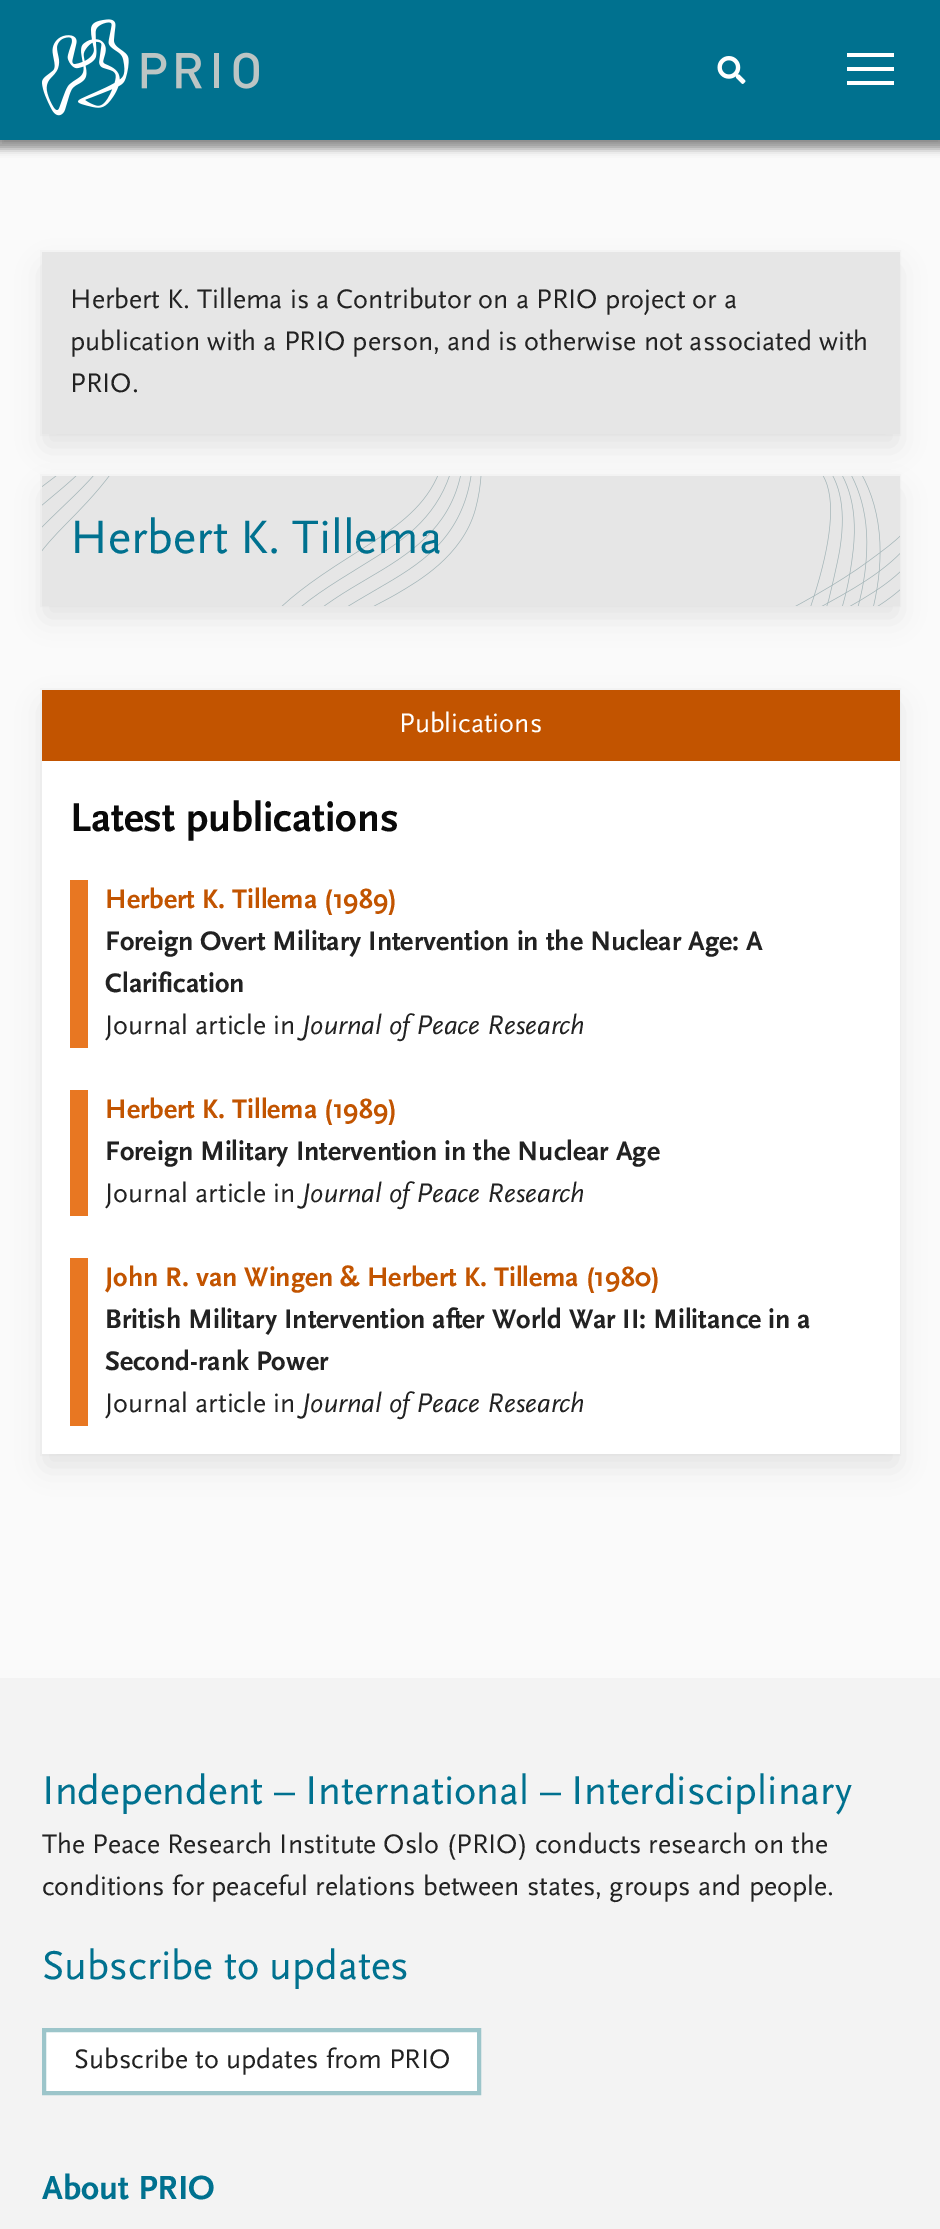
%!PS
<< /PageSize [940 2229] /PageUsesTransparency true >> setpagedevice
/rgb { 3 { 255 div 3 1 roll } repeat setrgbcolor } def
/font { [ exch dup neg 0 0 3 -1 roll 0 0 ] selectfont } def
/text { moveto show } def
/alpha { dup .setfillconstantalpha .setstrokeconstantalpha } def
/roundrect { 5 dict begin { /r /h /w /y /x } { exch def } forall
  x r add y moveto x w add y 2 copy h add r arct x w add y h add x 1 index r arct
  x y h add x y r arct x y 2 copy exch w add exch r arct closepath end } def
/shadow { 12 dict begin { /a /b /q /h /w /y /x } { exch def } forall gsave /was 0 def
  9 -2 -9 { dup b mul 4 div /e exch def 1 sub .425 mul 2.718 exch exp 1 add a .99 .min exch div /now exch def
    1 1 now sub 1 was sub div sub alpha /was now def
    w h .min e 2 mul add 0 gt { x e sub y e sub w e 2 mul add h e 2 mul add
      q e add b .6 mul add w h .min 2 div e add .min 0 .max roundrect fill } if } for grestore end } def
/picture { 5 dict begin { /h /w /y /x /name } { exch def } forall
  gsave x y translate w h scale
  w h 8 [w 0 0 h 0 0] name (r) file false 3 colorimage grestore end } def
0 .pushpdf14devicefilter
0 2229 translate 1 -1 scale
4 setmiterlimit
250 250 250 rgb
0 0 940 2229 rectfill
231 231 231 rgb
2 setlinewidth
-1 -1 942 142 rectstroke
50 50 50 rgb
-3 4 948 145 0 4 0.5 shadow
0 113 143 rgb
0 0 940 140 rectfill
(img_01.rgb) 42 19 217 97 picture
(img_02.rgb) 717 56 29 28 picture
255 255 255 rgb
847 53 47 4 rectfill
847 67 47 4 rectfill
847 81 47 4 rectfill
245 245 245 rgb
41 251 859 184 rectstroke
10 10 10 rgb
46 270 850 175 0 14 0.1 shadow
230 230 230 rgb
42 252 858 182 rectfill
245 245 245 rgb
41 475 859 131 rectstroke
10 10 10 rgb
46 494 850 122 0 14 0.1 shadow
230 230 230 rgb
42 476 858 130 rectfill
(img_03.rgb) 42 476 858 130 picture
245 245 245 rgb
41 689 859 766 rectstroke
10 10 10 rgb
46 707 850 758 0 14 0.1 shadow
255 255 255 rgb
42 761 858 693 rectfill
194 84 0 rgb
42 690 858 71 rectfill
232 119 34 rgb
70 880 18 168 rectfill
70 1090 18 126 rectfill
70 1258 18 168 rectfill
243 243 243 rgb
0 1678 940 551 rectfill
255 255 255 rgb
44 2030 moveto 435 0 rlineto 0 63 rlineto -435 0 rlineto closepath gsave fill grestore
156 197 202 rgb
4 setlinewidth
stroke
/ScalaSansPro-Regular 28 font
34 34 34 rgb
(Herbert K. Tillema is a Contributor on a PRIO project or a) 70 308 text
(publication with a PRIO person, and is otherwise not associated with) 70 350 text
(PRIO.) 70 392 text
/ScalaSansPro-Regular 49 font
0 113 143 rgb
(Herbert K. Tillema) 70 553 text
/ScalaSansPro-Regular 28 font
255 255 255 rgb
(Publications) 399 732 text
/ScalaSansPro-Bold 42 font
10 10 10 rgb
(Latest publications) 70 831 text
/ScalaSansPro-Bold 28 font
194 84 0 rgb
(Herbert K. Tillema \(1989\)) 105 908 text
34 34 34 rgb
(Foreign Overt Military Intervention in the Nuclear Age: A) 105 950 text
(Clarification) 105 992 text
/ScalaSansPro-Regular 28 font
(Journal article in) 105 1034 text
/ScalaSansPro-Italic 28 font
(Journal of Peace Research) 302 1034 text
/ScalaSansPro-Bold 28 font
194 84 0 rgb
(Herbert K. Tillema \(1989\)) 105 1118 text
34 34 34 rgb
(Foreign Military Intervention in the Nuclear Age) 105 1160 text
/ScalaSansPro-Regular 28 font
(Journal article in) 105 1202 text
/ScalaSansPro-Italic 28 font
(Journal of Peace Research) 302 1202 text
/ScalaSansPro-Bold 28 font
194 84 0 rgb
(John R. van Wingen & Herbert K. Tillema \(1980\)) 105 1286 text
34 34 34 rgb
(British Military Intervention after World War II: Militance in a) 105 1328 text
(Second-rank Power) 105 1370 text
/ScalaSansPro-Regular 28 font
(Journal article in) 105 1412 text
/ScalaSansPro-Italic 28 font
(Journal of Peace Research) 302 1412 text
/ScalaSansPro-Regular 42 font
0 113 143 rgb
(Independent – International – Interdisciplinary) 42 1804 text
/ScalaSansPro-Regular 28 font
34 34 34 rgb
(The Peace Research Institute Oslo \(PRIO\) conducts research on the) 42 1853 text
(conditions for peaceful relations between states, groups and people.) 42 1895 text
/ScalaSansPro-Regular 42 font
0 113 143 rgb
(Subscribe to updates) 42 1979 text
/ScalaSansPro-Regular 28 font
34 34 34 rgb
(Subscribe to updates from PRIO) 74 2068 text
/ScalaSansPro-Bold 35 font
0 113 143 rgb
(About PRIO) 42 2199 text
.poppdf14devicefilter showpage
